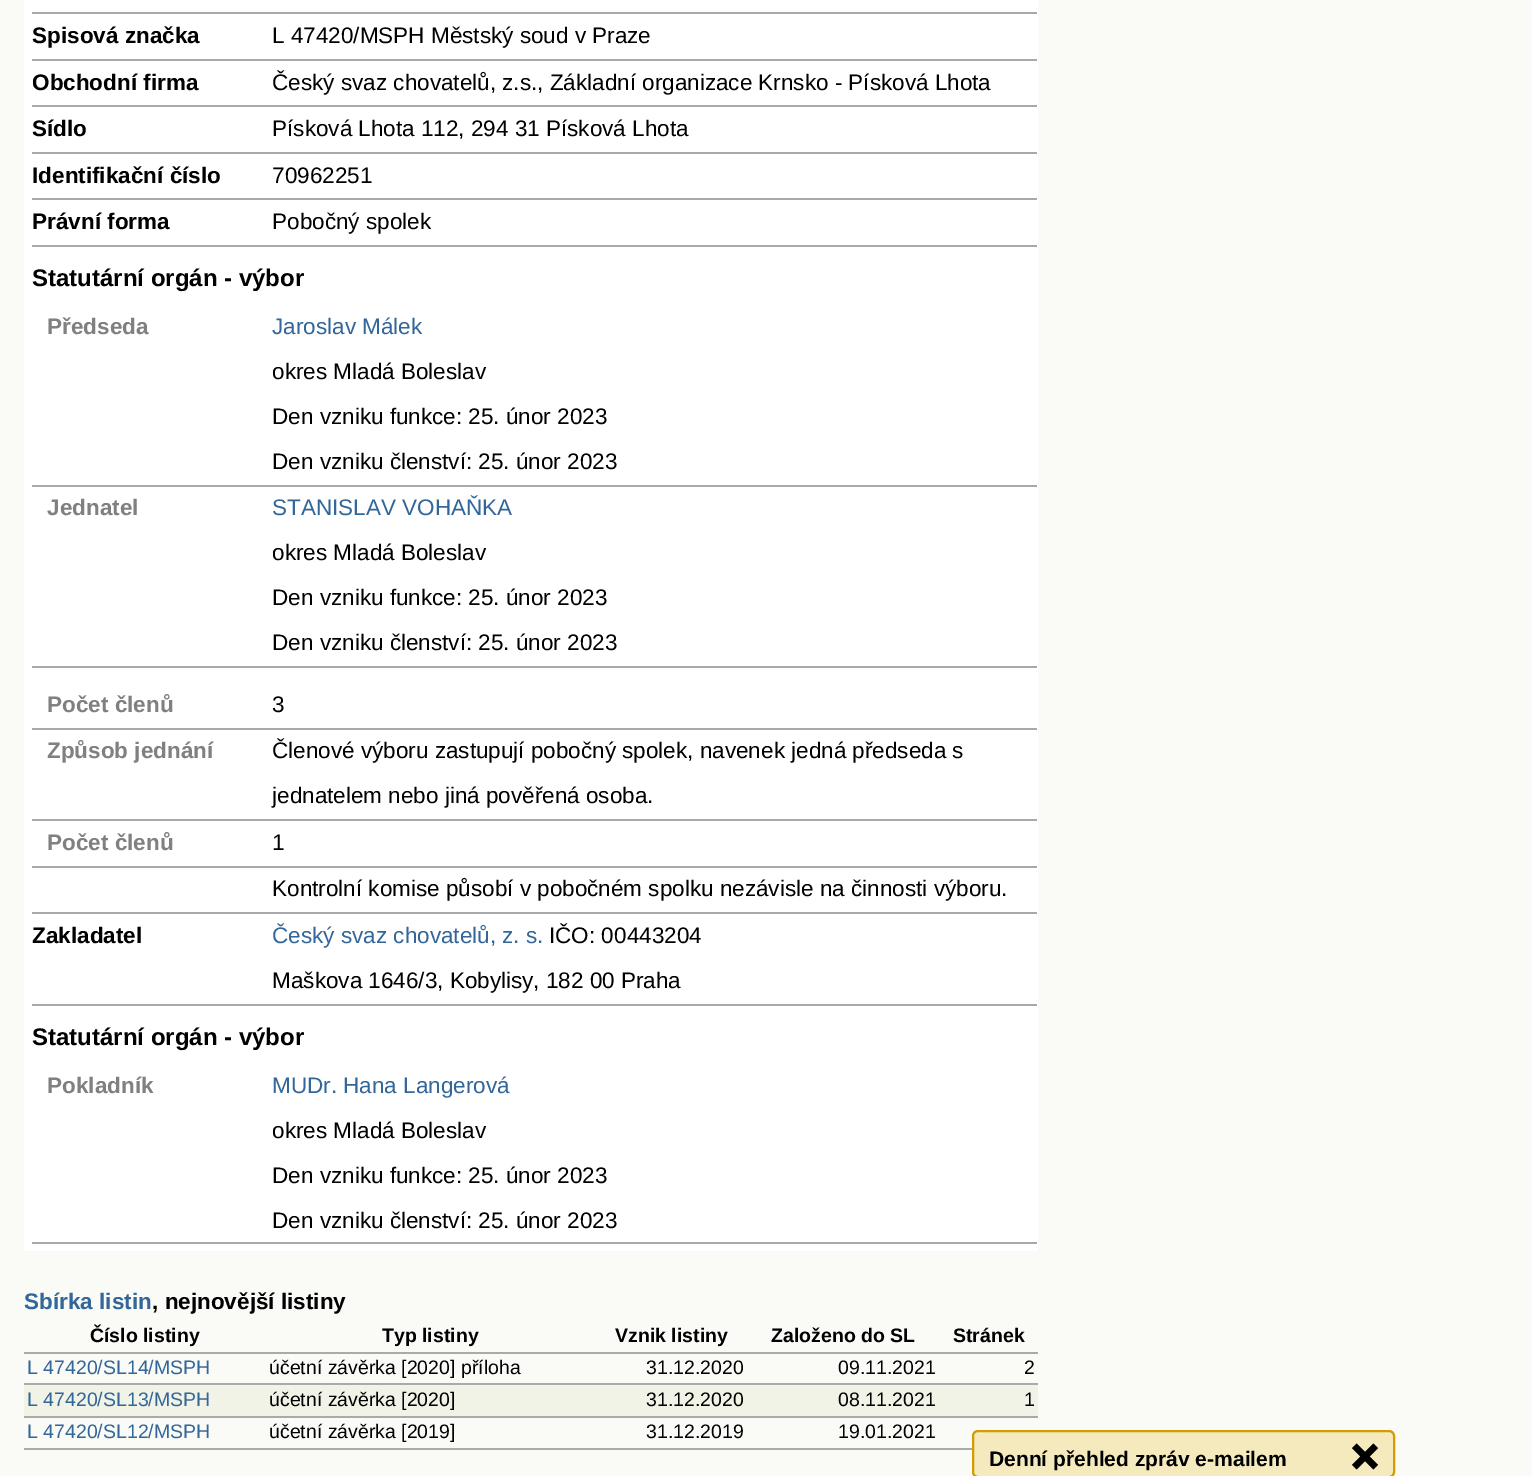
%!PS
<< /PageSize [1532 1476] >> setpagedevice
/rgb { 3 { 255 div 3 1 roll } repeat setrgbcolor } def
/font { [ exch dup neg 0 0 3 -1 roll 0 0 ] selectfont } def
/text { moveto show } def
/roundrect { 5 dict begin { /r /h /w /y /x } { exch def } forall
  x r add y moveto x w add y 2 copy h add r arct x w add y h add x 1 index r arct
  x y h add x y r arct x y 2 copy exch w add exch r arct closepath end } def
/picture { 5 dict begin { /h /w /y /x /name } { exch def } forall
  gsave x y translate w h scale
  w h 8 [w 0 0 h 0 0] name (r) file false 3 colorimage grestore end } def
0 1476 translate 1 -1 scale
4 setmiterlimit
250 251 247 rgb
0 0 1532 1476 rectfill
255 255 255 rgb
24 0 1014 1251 rectfill
169 169 169 rgb
32 12 1005 2 rectfill
32 59 1005 2 rectfill
32 105 1005 2 rectfill
32 152 1005 2 rectfill
32 198 1005 2 rectfill
32 245 1005 2 rectfill
32 485 1005 2 rectfill
32 666 1005 2 rectfill
32 728 1005 2 rectfill
32 819 1005 2 rectfill
32 866 1005 2 rectfill
32 912 1005 2 rectfill
32 1004 1005 2 rectfill
32 1242 1005 2 rectfill
170 170 170 rgb
24 1352 1014 2 rectfill
24 1383 1014 2 rectfill
241 243 230 rgb
24 1385 1014 31 rectfill
170 170 170 rgb
24 1416 1014 2 rectfill
24 1448 948 2 rectfill
244 234 189 rgb
973 1431 421 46 5 roundrect gsave fill grestore
212 156 1 rgb
2 setlinewidth
stroke
(img_01.rgb) 1352 1443 27 27 picture
/LiberationSans-Bold 22.5 font
0 0 0 rgb
(Spisová značka) 32 43 text
/LiberationSans-Regular 22.5 font
(L 47420/MSPH Městský soud v Praze) 272 43 text
/LiberationSans-Bold 22.5 font
(Obchodní firma) 32 90 text
/LiberationSans-Regular 22.5 font
(Český svaz chovatelů, z.s., Základní organizace Krnsko - Písková Lhota) 272 90 text
/LiberationSans-Bold 22.5 font
(Sídlo) 32 136 text
/LiberationSans-Regular 22.5 font
(Písková Lhota 112, 294 31 Písková Lhota) 272 136 text
/LiberationSans-Bold 22.5 font
(Identifikační číslo) 32 183 text
/LiberationSans-Regular 22.5 font
(70962251) 272 183 text
/LiberationSans-Bold 22.5 font
(Právní forma) 32 229 text
/LiberationSans-Regular 22.5 font
(Pobočný spolek) 272 229 text
/LiberationSans-Bold 24 font
(Statutární orgán - výbor) 32 286 text
/LiberationSans-Bold 22.5 font
128 128 128 rgb
(Předseda) 47 334 text
/LiberationSans-Regular 22.5 font
51 102 153 rgb
(Jaroslav Málek) 272 334 text
0 0 0 rgb
(okres Mladá Boleslav) 272 379 text
(Den vzniku funkce: 25. únor 2023) 272 424 text
(Den vzniku členství: 25. únor 2023) 272 469 text
/LiberationSans-Bold 22.5 font
128 128 128 rgb
(Jednatel) 47 515 text
/LiberationSans-Regular 22.5 font
51 102 153 rgb
(STANISLAV VOHAŇKA) 272 515 text
0 0 0 rgb
(okres Mladá Boleslav) 272 560 text
(Den vzniku funkce: 25. únor 2023) 272 605 text
(Den vzniku členství: 25. únor 2023) 272 650 text
/LiberationSans-Bold 22.5 font
128 128 128 rgb
(Počet členů) 47 712 text
/LiberationSans-Regular 22.5 font
0 0 0 rgb
(3) 272 712 text
/LiberationSans-Bold 22.5 font
128 128 128 rgb
(Způsob jednání) 47 758 text
/LiberationSans-Regular 22.5 font
0 0 0 rgb
(Členové výboru zastupují pobočný spolek, navenek jedná předseda s) 272 758 text
(jednatelem nebo jiná pověřená osoba.) 272 803 text
/LiberationSans-Bold 22.5 font
128 128 128 rgb
(Počet členů) 47 850 text
/LiberationSans-Regular 22.5 font
0 0 0 rgb
(1) 272 850 text
(Kontrolní komise působí v pobočném spolku nezávisle na činnosti výboru.) 272 896 text
/LiberationSans-Bold 22.5 font
(Zakladatel) 32 943 text
/LiberationSans-Regular 22.5 font
51 102 153 rgb
(Český svaz chovatelů, z. s.) 272 943 text
0 0 0 rgb
(IČO: 00443204) 549 943 text
(Maškova 1646/3, Kobylisy, 182 00 Praha) 272 988 text
/LiberationSans-Bold 24 font
(Statutární orgán - výbor) 32 1045 text
/LiberationSans-Bold 22.5 font
128 128 128 rgb
(Pokladník) 47 1093 text
/LiberationSans-Regular 22.5 font
51 102 153 rgb
(MUDr. Hana Langerová) 272 1093 text
0 0 0 rgb
(okres Mladá Boleslav) 272 1138 text
(Den vzniku funkce: 25. únor 2023) 272 1183 text
(Den vzniku členství: 25. únor 2023) 272 1228 text
/LiberationSans-Bold 22.5 font
51 102 153 rgb
(Sbírka listin) 24 1309 text
0 0 0 rgb
(, nejnovější listiny) 152 1309 text
/LiberationSans-Bold 19.5 font
(Číslo listiny) 90 1342 text
(Typ listiny) 382 1342 text
(Vznik listiny) 615 1342 text
(Založeno do SL) 771 1342 text
(Stránek) 953 1342 text
/LiberationSans-Regular 19.5 font
51 102 153 rgb
(L 47420/SL14/MSPH) 27 1374 text
0 0 0 rgb
(účetní závěrka [2020] příloha) 269 1374 text
(31.12.2020) 646 1374 text
(09.11.2021) 838 1374 text
(2) 1024 1374 text
51 102 153 rgb
(L 47420/SL13/MSPH) 27 1406 text
0 0 0 rgb
(účetní závěrka [2020]) 269 1406 text
(31.12.2020) 646 1406 text
(08.11.2021) 838 1406 text
(1) 1024 1406 text
51 102 153 rgb
(L 47420/SL12/MSPH) 27 1438 text
0 0 0 rgb
(účetní závěrka [2019]) 269 1438 text
(31.12.2019) 646 1438 text
(19.01.2021) 838 1438 text
/LiberationSans-Bold 21 font
(Denní přehled zpráv e-mailem) 989 1466 text
showpage
